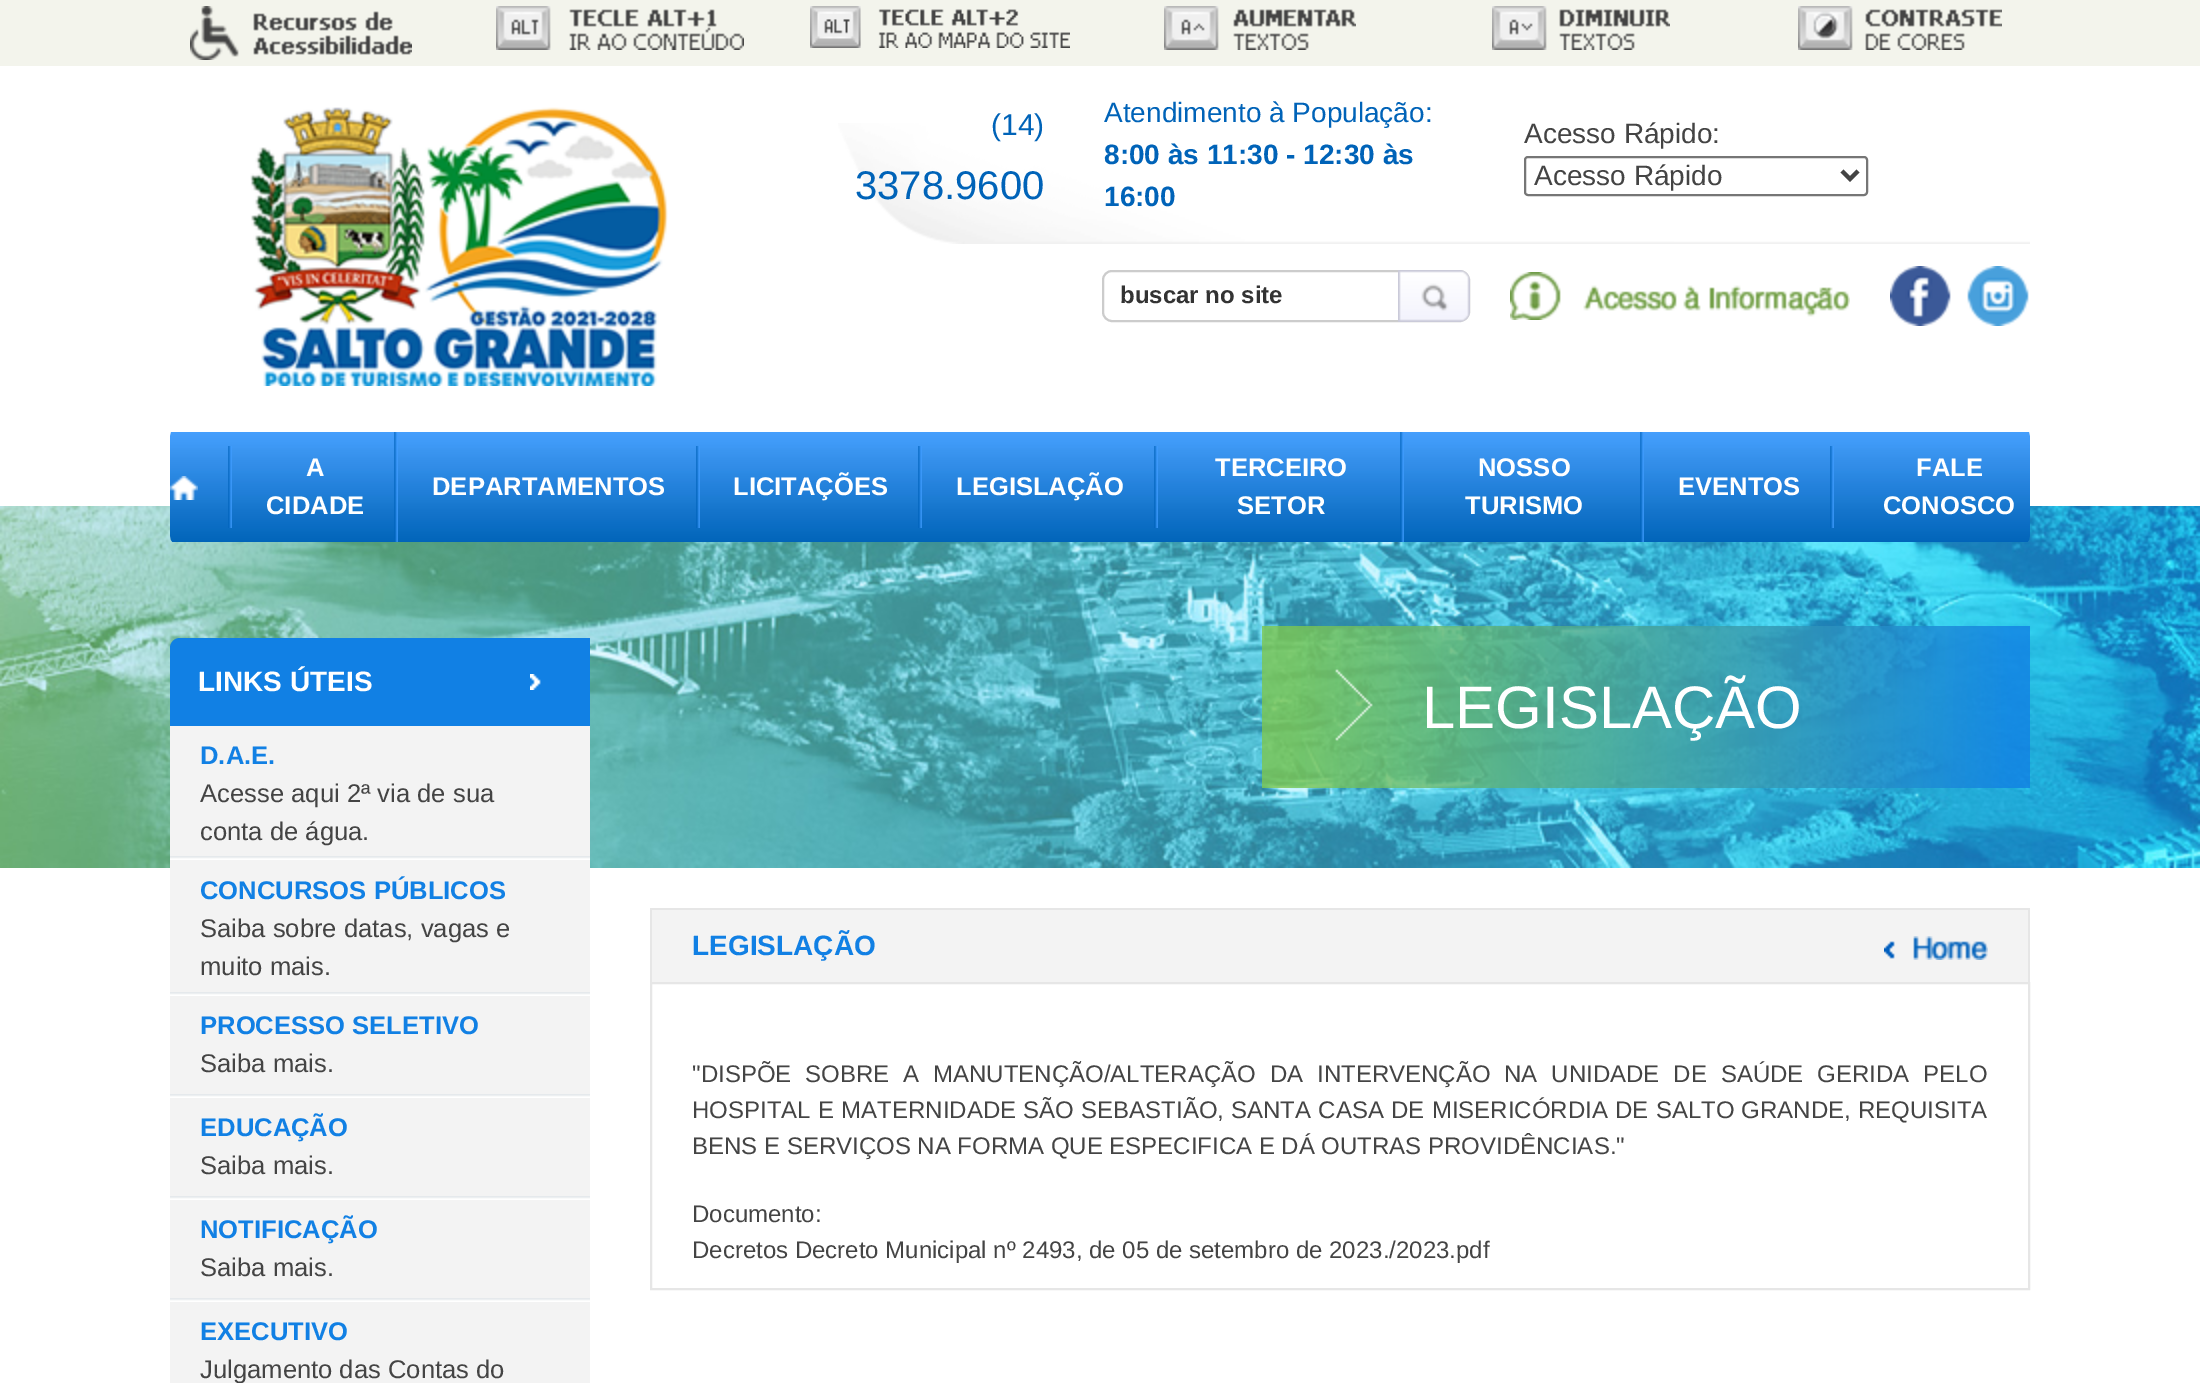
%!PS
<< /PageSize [2200 1383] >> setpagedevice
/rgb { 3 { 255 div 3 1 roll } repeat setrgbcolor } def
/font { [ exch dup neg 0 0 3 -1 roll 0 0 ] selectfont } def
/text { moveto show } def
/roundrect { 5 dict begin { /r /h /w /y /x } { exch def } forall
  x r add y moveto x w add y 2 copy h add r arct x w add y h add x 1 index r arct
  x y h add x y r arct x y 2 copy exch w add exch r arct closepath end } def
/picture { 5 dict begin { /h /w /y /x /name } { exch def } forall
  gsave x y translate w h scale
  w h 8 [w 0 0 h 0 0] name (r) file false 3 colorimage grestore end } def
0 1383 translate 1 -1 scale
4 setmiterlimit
255 255 255 rgb
0 0 2200 1383 rectfill
243 244 236 rgb
0 0 2200 66 rectfill
(img_01.rgb) 190 6 222 54 picture
(img_02.rgb) 496 6 248 44 picture
(img_03.rgb) 810 6 260 42 picture
(img_04.rgb) 1164 6 192 44 picture
(img_05.rgb) 1492 6 178 44 picture
(img_06.rgb) 1798 6 204 44 picture
(img_07.rgb) 250 107 418 279 picture
(img_08.rgb) 838 123 1192 121 picture
118 118 118 rgb
2 setlinewidth
1525 157 342 38 3 roundrect stroke
68 68 68 rgb
4 setlinewidth
1842 171 moveto 8 8 rlineto 8 -8 rlineto stroke
204 204 204 rgb
2 setlinewidth
1103 271 366 50 9 roundrect stroke
(img_09.rgb) 1398 270 72 52 picture
(img_10.rgb) 1510 272 340 48 picture
(img_11.rgb) 1890 266 61 60 picture
(img_12.rgb) 1967 266 62 60 picture
(img_20.rgb) 0 506 2200 362 picture
(img_13.rgb) 170 432 1860 110 picture
(img_14.rgb) 228 446 4 82 picture
(img_15.rgb) 170 476 28 24 picture
(img_16.rgb) 394 432 4 110 picture
(img_14.rgb) 696 446 4 82 picture
(img_14.rgb) 918 446 4 82 picture
(img_14.rgb) 1154 446 4 82 picture
(img_16.rgb) 1400 432 4 110 picture
(img_16.rgb) 1640 432 4 110 picture
(img_14.rgb) 1830 446 4 82 picture
17 128 228 rgb
180 638 moveto 410 0 rlineto 0 88 rlineto -420 0 rlineto 0 -78 rlineto 0 -5.5 4.5 -10 10 -10 rcurveto closepath fill
(img_17.rgb) 530 674 11 16 picture
243 243 243 rgb
170 726 420 130 rectfill
(img_18.rgb) 170 856 420 4 picture
170 860 420 132 rectfill
(img_18.rgb) 170 992 420 4 picture
170 996 420 98 rectfill
(img_18.rgb) 170 1094 420 4 picture
170 1098 420 98 rectfill
(img_18.rgb) 170 1196 420 4 picture
170 1200 420 98 rectfill
(img_18.rgb) 170 1298 420 4 picture
170 1302 420 81 rectfill
652 910 1376 72 rectfill
230 230 230 rgb
650 908 1380 2 rectfill
2028 908 2 74 rectfill
650 908 2 74 rectfill
(img_19.rgb) 1884 936 104 24 picture
651 983 1378 306 rectstroke
(img_21.rgb) 1262 626 768 162 picture
/LiberationSans-Regular 30 font
0 99 184 rgb
(\(14\)) 991 135 text
/LiberationSans-Regular 40 font
(3378.9600) 855 199 text
/LiberationSans-Regular 28 font
(Atendimento à População:) 1104 122 text
/LiberationSans-Bold 28 font
(8:00 às 11:30 - 12:30 às) 1104 164 text
(16:00) 1104 206 text
/LiberationSans-Regular 28 font
68 68 68 rgb
(Acesso Rápido:) 1524 143 text
(Acesso Rápido) 1534 185 text
/LiberationSans-Bold 24 font
51 51 51 rgb
(buscar no site) 1120 303 text
/LiberationSans-Bold 25.6 font
255 255 255 rgb
(A) 306 476 text
(CIDADE) 266 514 text
(DEPARTAMENTOS) 432 495 text
(LICITAÇÕES) 733 495 text
(LEGISLAÇÃO) 956 495 text
(TERCEIRO) 1215 476 text
(SETOR) 1237 514 text
(NOSSO) 1478 476 text
(TURISMO) 1465 514 text
(EVENTOS) 1678 495 text
(FALE) 1916 476 text
(CONOSCO) 1883 514 text
/LiberationSans-Bold 28 font
(LINKS ÚTEIS) 198 691 text
/LiberationSans-Bold 25.6 font
17 128 228 rgb
(D.A.E.) 200 764 text
/LiberationSans-Regular 25.6 font
68 68 68 rgb
(Acesse aqui 2ª via de sua) 200 802 text
(conta de água.) 200 840 text
/LiberationSans-Bold 25.6 font
17 128 228 rgb
(CONCURSOS PÚBLICOS) 200 899 text
/LiberationSans-Regular 25.6 font
68 68 68 rgb
(Saiba sobre datas, vagas e) 200 937 text
(muito mais.) 200 975 text
/LiberationSans-Bold 25.6 font
17 128 228 rgb
(PROCESSO SELETIVO) 200 1034 text
/LiberationSans-Regular 25.6 font
68 68 68 rgb
(Saiba mais.) 200 1072 text
/LiberationSans-Bold 25.6 font
17 128 228 rgb
(EDUCAÇÃO) 200 1136 text
/LiberationSans-Regular 25.6 font
68 68 68 rgb
(Saiba mais.) 200 1174 text
/LiberationSans-Bold 25.6 font
17 128 228 rgb
(NOTIFICAÇÃO) 200 1238 text
/LiberationSans-Regular 25.6 font
68 68 68 rgb
(Saiba mais.) 200 1276 text
/LiberationSans-Bold 25.6 font
17 128 228 rgb
(EXECUTIVO) 200 1340 text
/LiberationSans-Regular 25.6 font
68 68 68 rgb
(Julgamento das Contas do) 200 1378 text
/LiberationSans-Bold 28 font
17 128 228 rgb
(LEGISLAÇÃO) 692 955 text
/LiberationSans-Regular 24 font
68 68 68 rgb
692 1082 moveto 7.25 0 32 ("DISPÕE SOBRE A MANUTENÇÃO/ALTERAÇÃO DA INTERVENÇÃO NA UNIDADE DE SAÚDE GERIDA PELO) widthshow
692 1118 moveto 0.6 0 32 (HOSPITAL E MATERNIDADE SÃO SEBASTIÃO, SANTA CASA DE MISERICÓRDIA DE SALTO GRANDE, REQUISITA) widthshow
(BENS E SERVIÇOS NA FORMA QUE ESPECIFICA E DÁ OUTRAS PROVIDÊNCIAS.") 692 1154 text
(Documento:) 692 1222 text
(Decretos Decreto Municipal nº 2493, de 05 de setembro de 2023./2023.pdf) 692 1258 text
/LiberationSans-Regular 60 font
255 255 255 rgb
(LEGISLAÇÃO) 1422 728 text
showpage
